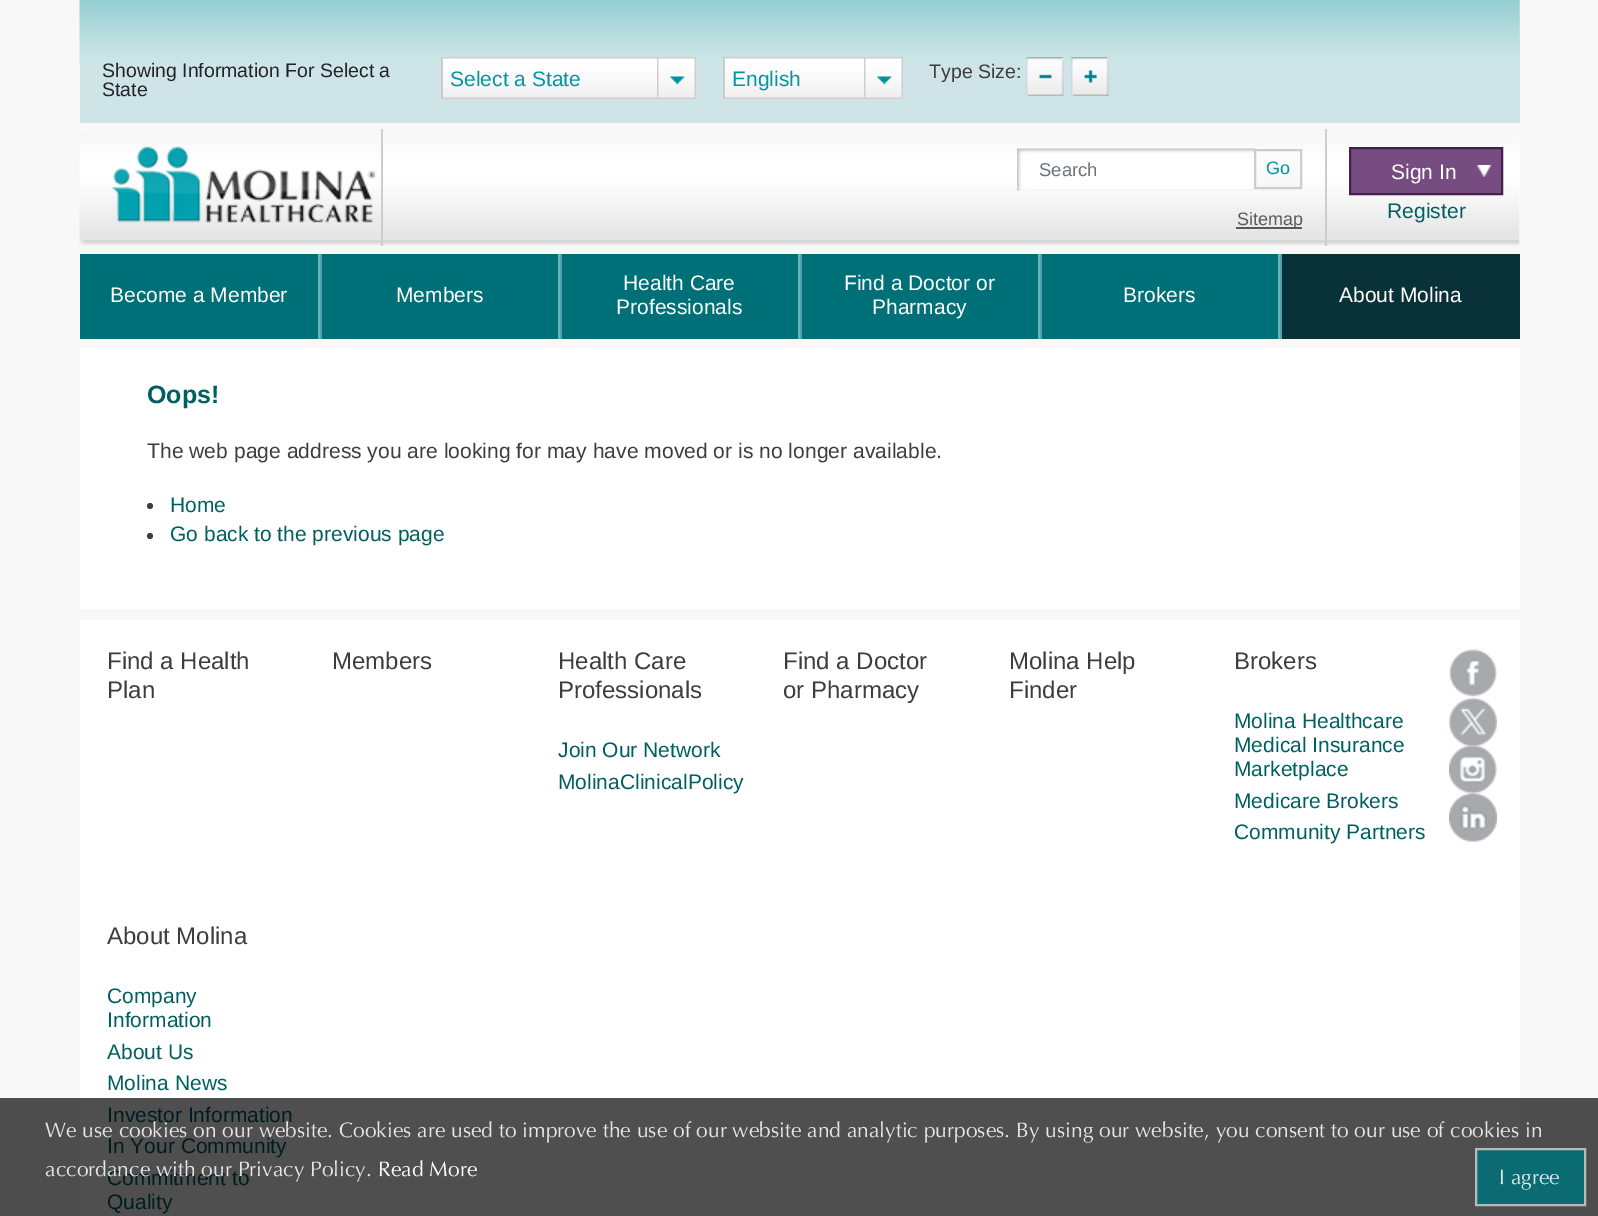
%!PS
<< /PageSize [1598 1216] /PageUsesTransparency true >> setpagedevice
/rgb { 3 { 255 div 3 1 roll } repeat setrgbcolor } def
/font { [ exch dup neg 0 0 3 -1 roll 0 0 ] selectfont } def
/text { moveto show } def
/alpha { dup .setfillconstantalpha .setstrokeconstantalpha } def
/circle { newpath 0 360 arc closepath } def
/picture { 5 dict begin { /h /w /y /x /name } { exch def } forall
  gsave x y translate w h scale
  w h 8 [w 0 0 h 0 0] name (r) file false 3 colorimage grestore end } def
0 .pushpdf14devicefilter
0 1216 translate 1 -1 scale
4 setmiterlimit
248 248 248 rgb
0 0 1598 1216 rectfill
207 228 231 rgb
80 0 1440 123 rectfill
(img_01.rgb) 79 0 1441 65 picture
(img_02.rgb) 443 57 253 42 picture
204 204 204 rgb
441 57 2 42 rectfill
(img_03.rgb) 657 58 39 40 picture
(img_04.rgb) 725 57 178 42 picture
723 57 2 42 rectfill
(img_03.rgb) 864 58 39 40 picture
(img_05.rgb) 1026 57 38 39 picture
(img_06.rgb) 1071 57 38 39 picture
255 255 255 rgb
80 129 1440 117 rectfill
(img_07.rgb) 79 129 1441 117 picture
205 205 205 rgb
381 129 2 117 rectfill
(img_08.rgb) 111 146 265 77 picture
(img_09.rgb) 1017 148 239 43 picture
(img_10.rgb) 1256 151 44 36 picture
2 setlinewidth
1255 150 46 38 rectstroke
89 89 89 rgb
1236 227 66 2 rectfill
205 205 205 rgb
1325 129 2 117 rectfill
119 76 129 rgb
1350 148 moveto 152 0 rlineto 0 46 rlineto -152 0 rlineto closepath gsave fill grestore
68 32 77 rgb
stroke
(img_11.rgb) 1476 165 15 12 picture
0 112 120 rgb
80 254 238 85 rectfill
104 182 188 rgb
318 254 2 85 rectfill
0 112 120 rgb
322 254 236 85 rectfill
104 182 188 rgb
558 254 2 85 rectfill
83 161 169 rgb
320 254 2 85 rectfill
0 112 120 rgb
562 254 236 85 rectfill
104 182 188 rgb
798 254 2 85 rectfill
83 161 169 rgb
560 254 2 85 rectfill
0 112 120 rgb
802 254 236 85 rectfill
104 182 188 rgb
1038 254 2 85 rectfill
83 161 169 rgb
800 254 2 85 rectfill
0 112 120 rgb
1042 254 236 85 rectfill
104 182 188 rgb
1278 254 2 85 rectfill
83 161 169 rgb
1040 254 2 85 rectfill
9 50 56 rgb
1282 254 238 85 rectfill
83 161 169 rgb
1280 254 2 85 rectfill
255 255 255 rgb
80 348 1440 261 rectfill
61 61 61 rgb
150 506 3 circle fill
150 536 3 circle fill
255 255 255 rgb
80 620 1440 596 rectfill
(img_12.rgb) 1449 649 48 48 picture
(img_13.rgb) 1449 697 48 49 picture
(img_14.rgb) 1449 745 48 49 picture
(img_15.rgb) 1449 793 48 49 picture
/LiberationSans-Regular 19.5 font
33 37 41 rgb
(Showing Information For Select a) 102 77 text
(State) 102 96 text
/LiberationSans-Regular 21 font
3 149 162 rgb
(Select a State) 450 86 text
(English) 732 86 text
/LiberationSans-Regular 19.5 font
61 61 61 rgb
(Type Size:) 929 78 text
/LiberationSans-Regular 18.5 font
108 117 125 rgb
(Search) 1039 176 text
/LiberationSans-Regular 18 font
3 149 162 rgb
(Go) 1266 174 text
89 89 89 rgb
(Sitemap) 1237 225 text
/LiberationSans-Regular 21 font
255 255 255 rgb
(Sign In) 1391 179 text
/LiberationSans-Regular 21.1 font
0 95 97 rgb
(Register) 1387 218 text
/LiberationSans-Regular 21 font
255 255 255 rgb
(Become a Member) 110 302 text
(Members) 396 302 text
(Health Care) 623 290 text
(Professionals) 616 314 text
(Find a Doctor or) 844 290 text
(Pharmacy) 872 314 text
(Brokers) 1123 302 text
(About Molina) 1339 302 text
/LiberationSans-Bold 25 font
0 95 97 rgb
(Oops!) 147 403 text
/LiberationSans-Regular 21.1 font
61 61 61 rgb
(The web page address you are looking for may have moved or is no longer available.) 147 458 text
/LiberationSans-Regular 21 font
0 95 97 rgb
(Home) 170 512 text
(Go back to the previous page) 170 541 text
/LiberationSans-Regular 24 font
61 61 61 rgb
(Find a Health) 107 669 text
(Plan) 107 698 text
(Members) 332 669 text
(Health Care) 558 669 text
(Professionals) 558 698 text
/LiberationSans-Regular 21 font
0 95 97 rgb
(Join Our Network) 558 757 text
(MolinaClinicalPolicy) 558 789 text
/LiberationSans-Regular 24 font
61 61 61 rgb
(Find a Doctor) 783 669 text
(or Pharmacy) 783 698 text
(Molina Help) 1009 669 text
(Finder) 1009 698 text
(Brokers) 1234 669 text
/LiberationSans-Regular 21 font
0 95 97 rgb
(Molina Healthcare) 1234 728 text
(Medical Insurance) 1234 752 text
(Marketplace) 1234 776 text
(Medicare Brokers) 1234 808 text
(Community Partners) 1234 839 text
/LiberationSans-Regular 24 font
61 61 61 rgb
(About Molina) 107 944 text
/LiberationSans-Regular 21 font
0 95 97 rgb
(Company) 107 1003 text
(Information) 107 1027 text
(About Us) 107 1059 text
(Molina News) 107 1090 text
(Investor Information) 107 1122 text
(In Your Community) 107 1153 text
(Commitment to) 107 1185 text
(Quality) 107 1209 text
0.69 alpha
0 0 0 rgb
0 1098 1598 118 rectfill
/Optima-Regular 21 font
1 alpha
230 230 230 rgb
(We use cookies on our website. Cookies are used to improve the use of our website and analytic purposes. By using our website, you consent to our use of cookies in) 45 1137 text
(accordance with our Privacy Policy.) 45 1176 text
255 255 255 rgb
(Read More) 378 1176 text
11 107 114 rgb
1476 1149 108 56 rectfill
0.86 alpha
204 204 204 rgb
1476 1149 109 56 rectstroke
1 alpha
221 234 235 rgb
(I agree) 1499 1184 text
.poppdf14devicefilter showpage
